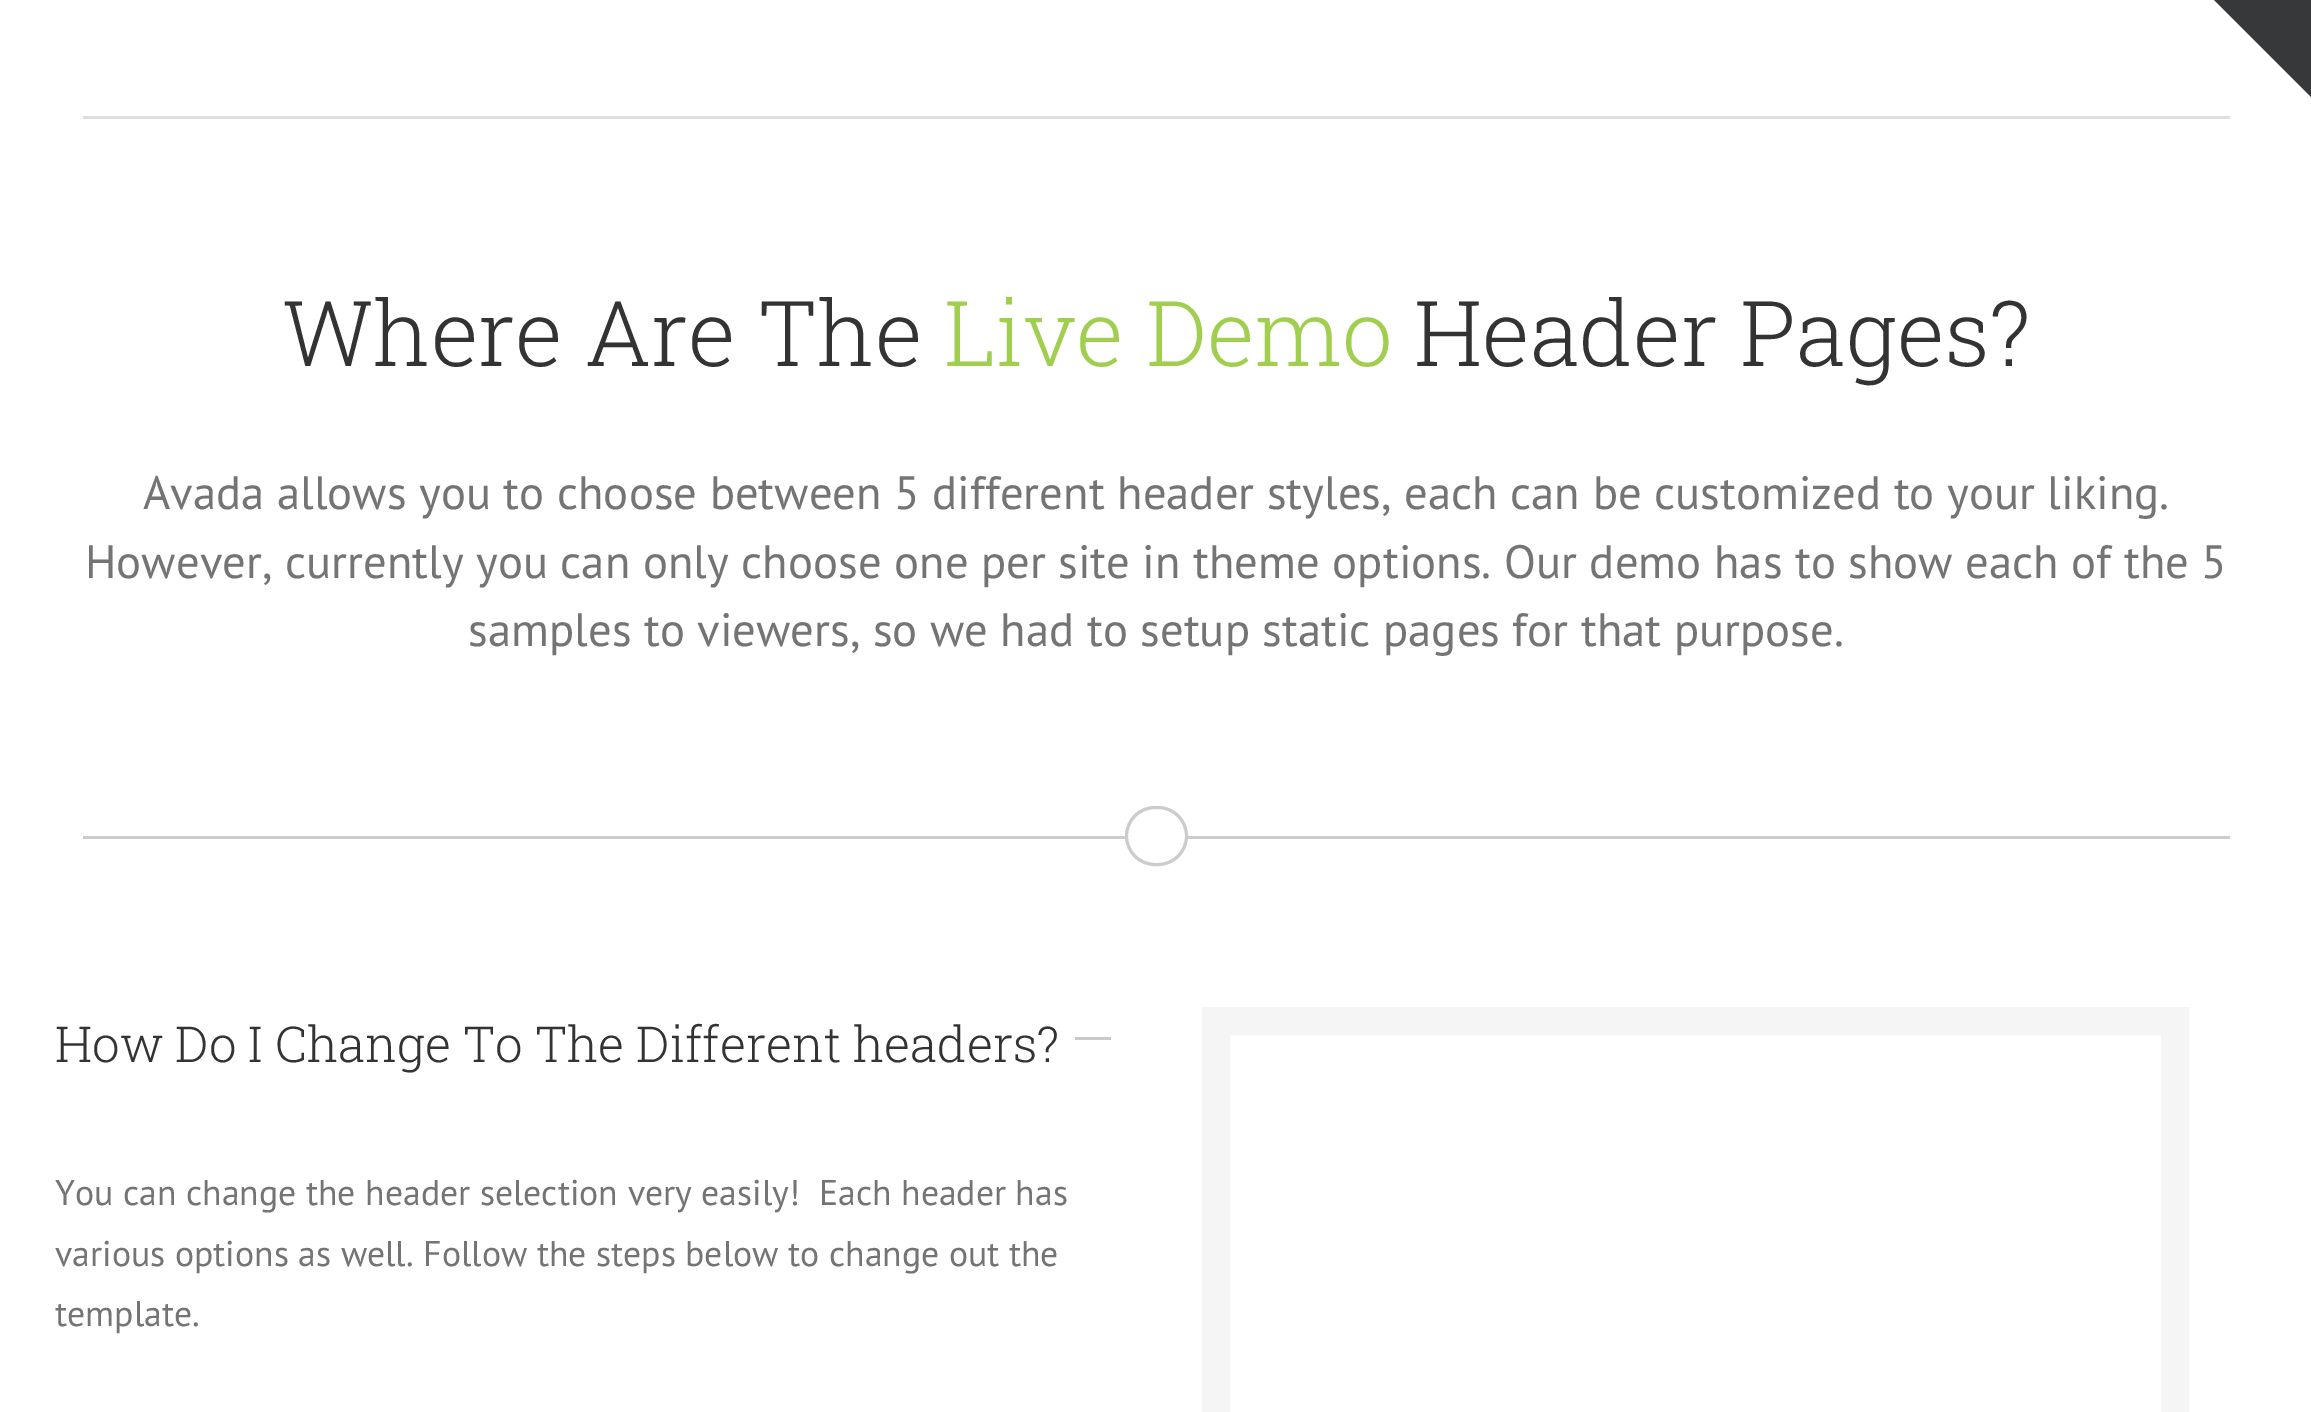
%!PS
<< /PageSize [2311 1412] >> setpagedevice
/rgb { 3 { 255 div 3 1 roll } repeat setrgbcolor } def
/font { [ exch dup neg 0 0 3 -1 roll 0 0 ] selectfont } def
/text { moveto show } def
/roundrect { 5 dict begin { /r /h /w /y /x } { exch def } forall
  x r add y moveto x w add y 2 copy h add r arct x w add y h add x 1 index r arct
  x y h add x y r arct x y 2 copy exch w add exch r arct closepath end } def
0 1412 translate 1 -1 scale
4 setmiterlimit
255 255 255 rgb
0 0 2311 1412 rectfill
54 56 57 rgb
2214 0 moveto 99 0 rlineto 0 99 rlineto closepath fill
224 222 222 rgb
83 116 2147 3 rectfill
204 204 204 rgb
83 836 1042 3 rectfill
3 setlinewidth
1126.5 807.5 60 57 28.5 roundrect stroke
1188 836 1042 3 rectfill
201 201 201 rgb
1075 1037 36 3 rectfill
245 245 245 rgb
28 setlinewidth
1216 1021 959 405 rectstroke
/RobotoSlab-Light 90.75 font
51 51 51 rgb
(Where Are The) 282 366 text
160 206 78 rgb
(Live Demo) 944 366 text
51 51 51 rgb
(Header Pages?) 1414 366 text
/PTSans-Regular 46.75 font
116 116 116 rgb
(Avada allows you to choose between 5 different header styles, each can be customized to your liking.) 143 509 text
(However, currently you can only choose one per site in theme options. Our demo has to show each of the 5) 85 578 text
(samples to viewers, so we had to setup static pages for that purpose.) 468 646 text
/RobotoSlab-Light 49.5 font
51 51 51 rgb
(How Do I Change To The Different headers?) 55 1062 text
/PTSans-Regular 35.75 font
116 116 116 rgb
(You can change the header selection very easily!  Each header has) 55 1205 text
(various options as well. Follow the steps below to change out the) 55 1266 text
(template.) 55 1326 text
showpage
